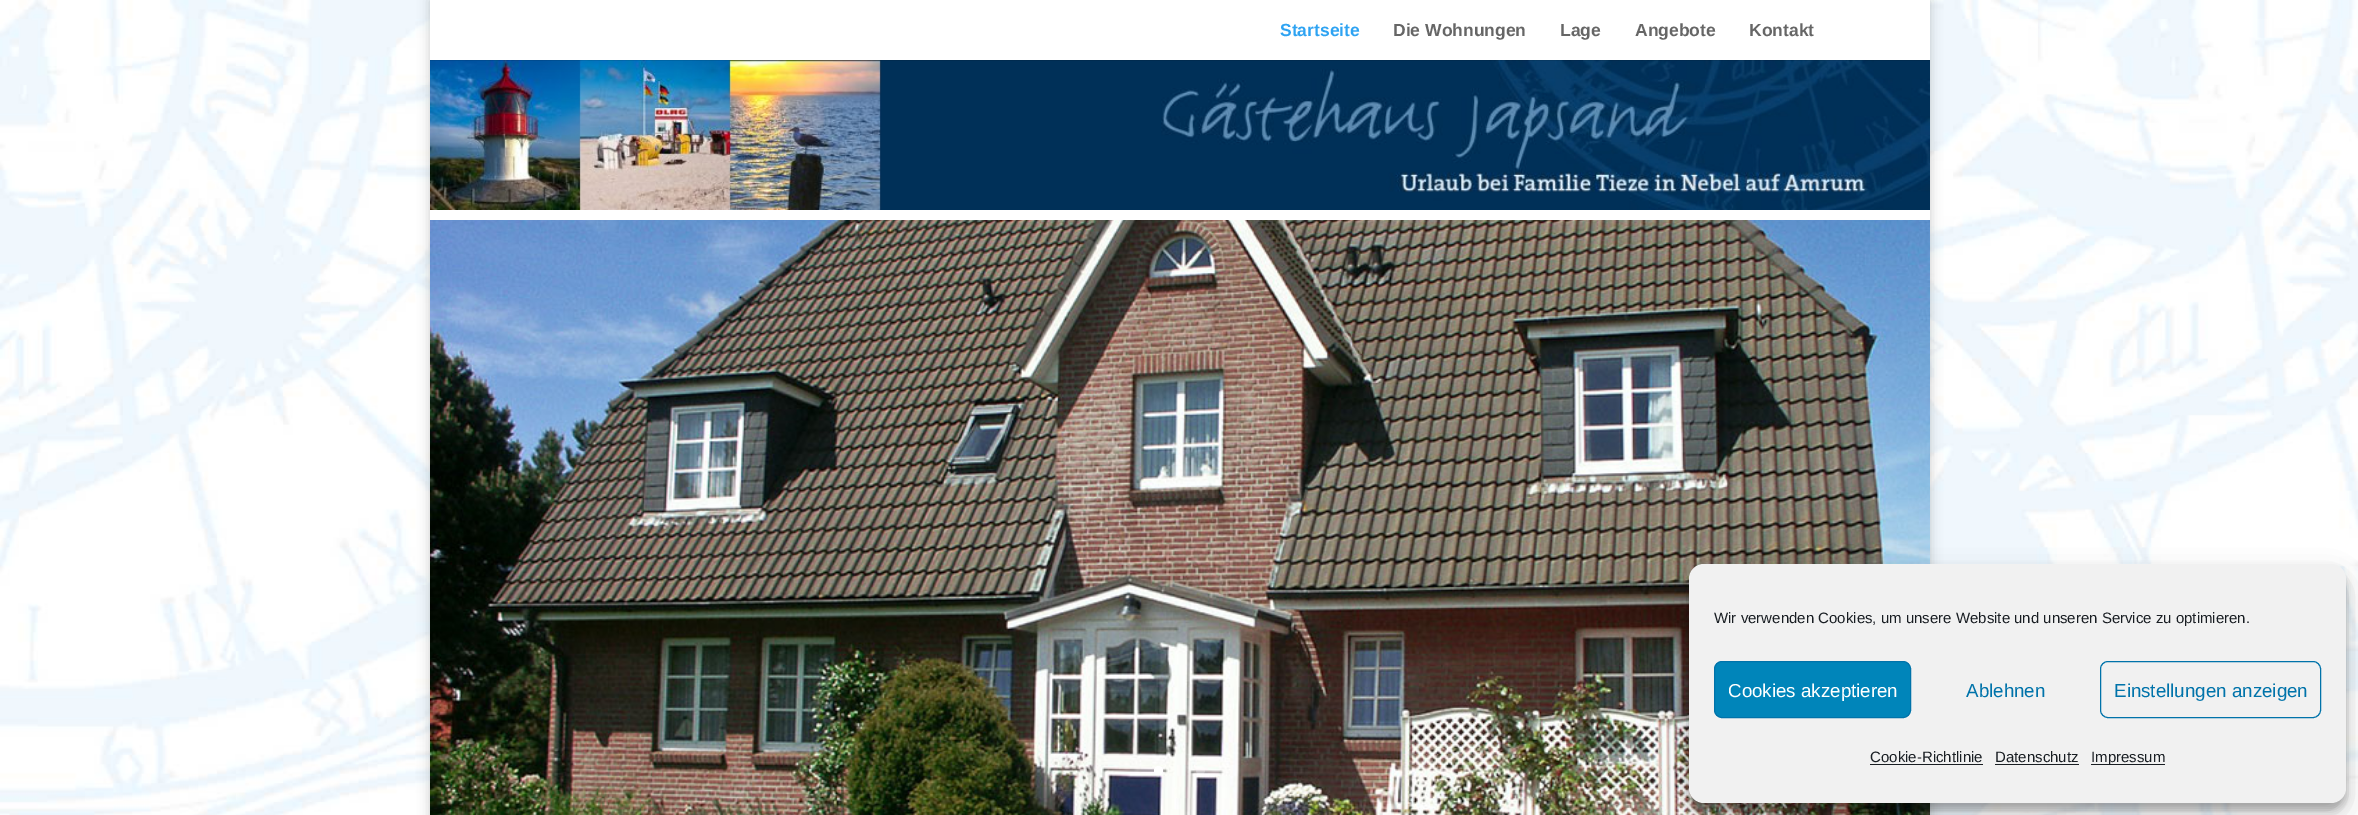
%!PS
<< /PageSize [2358 815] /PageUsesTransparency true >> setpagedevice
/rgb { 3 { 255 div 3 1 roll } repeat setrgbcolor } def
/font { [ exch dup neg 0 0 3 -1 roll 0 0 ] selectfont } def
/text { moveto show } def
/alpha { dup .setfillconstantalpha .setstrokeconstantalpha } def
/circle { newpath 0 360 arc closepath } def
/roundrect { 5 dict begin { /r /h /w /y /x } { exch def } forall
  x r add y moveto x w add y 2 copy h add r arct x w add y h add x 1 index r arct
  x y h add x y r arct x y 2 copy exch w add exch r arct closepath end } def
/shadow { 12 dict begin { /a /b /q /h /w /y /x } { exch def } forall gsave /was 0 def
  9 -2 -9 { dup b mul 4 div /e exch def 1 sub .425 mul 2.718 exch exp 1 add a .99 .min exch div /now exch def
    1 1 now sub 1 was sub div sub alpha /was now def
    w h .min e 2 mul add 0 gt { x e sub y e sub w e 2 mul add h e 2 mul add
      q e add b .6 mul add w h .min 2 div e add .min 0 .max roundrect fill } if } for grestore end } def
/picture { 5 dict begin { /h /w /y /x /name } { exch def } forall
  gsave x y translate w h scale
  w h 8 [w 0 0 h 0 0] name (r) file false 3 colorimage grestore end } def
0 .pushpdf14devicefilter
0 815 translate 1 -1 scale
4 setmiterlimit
255 255 255 rgb
0 0 2358 815 rectfill
(img_01.rgb) 0 0 2358 815 picture
0 0 0 rgb
430 0 1500 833 0 6 0.2 shadow
(img_02.rgb) 430 60 1500 150 picture
0.1 alpha
430 60 1500 1 rectfill
1 alpha
255 255 255 rgb
430 0 1500 60 rectfill
430 210 1500 10 rectfill
(img_03.rgb) 430 220 1500 595 picture
1158.5 770.5 4.5 circle fill
0.25 alpha
1200.5 770.5 4.5 circle fill
1 alpha
0 0 0 rgb
1689 571 657 239 15 4 0.23 shadow
1689 576 657 239 15 12.5 0.19 shadow
241 241 241 rgb
1689 564 657 239 15 roundrect fill
0 133 186 rgb
1714.5 661.5 196 56 7.5 roundrect gsave fill grestore
0 115 170 rgb
stroke
2100.5 661.5 220 56 7.5 roundrect stroke
25 30 35 rgb
1870 764 113 1 rectfill
1995 764 84 1 rectfill
2091 764 74 1 rectfill
/LiberationSans-Bold 17.5 font
46 163 242 rgb
(Startseite) 1280 36 text
102 102 102 rgb
(Die Wohnungen) 1393 36 text
(Lage) 1560 36 text
(Angebote) 1635 36 text
(Kontakt) 1749 36 text
/LiberationSans-Regular 15 font
25 30 35 rgb
(Wir verwenden Cookies, um unsere Website und unseren Service zu optimieren.) 1714 623 text
/LiberationSans-Regular 18.75 font
255 255 255 rgb
(Cookies akzeptieren) 1728 697 text
0 115 170 rgb
(Ablehnen) 1966 697 text
(Einstellungen anzeigen) 2114 697 text
/LiberationSans-Regular 15 font
25 30 35 rgb
(Cookie-Richtlinie) 1870 762 text
(Datenschutz) 1995 762 text
(Impressum) 2091 762 text
.poppdf14devicefilter showpage
